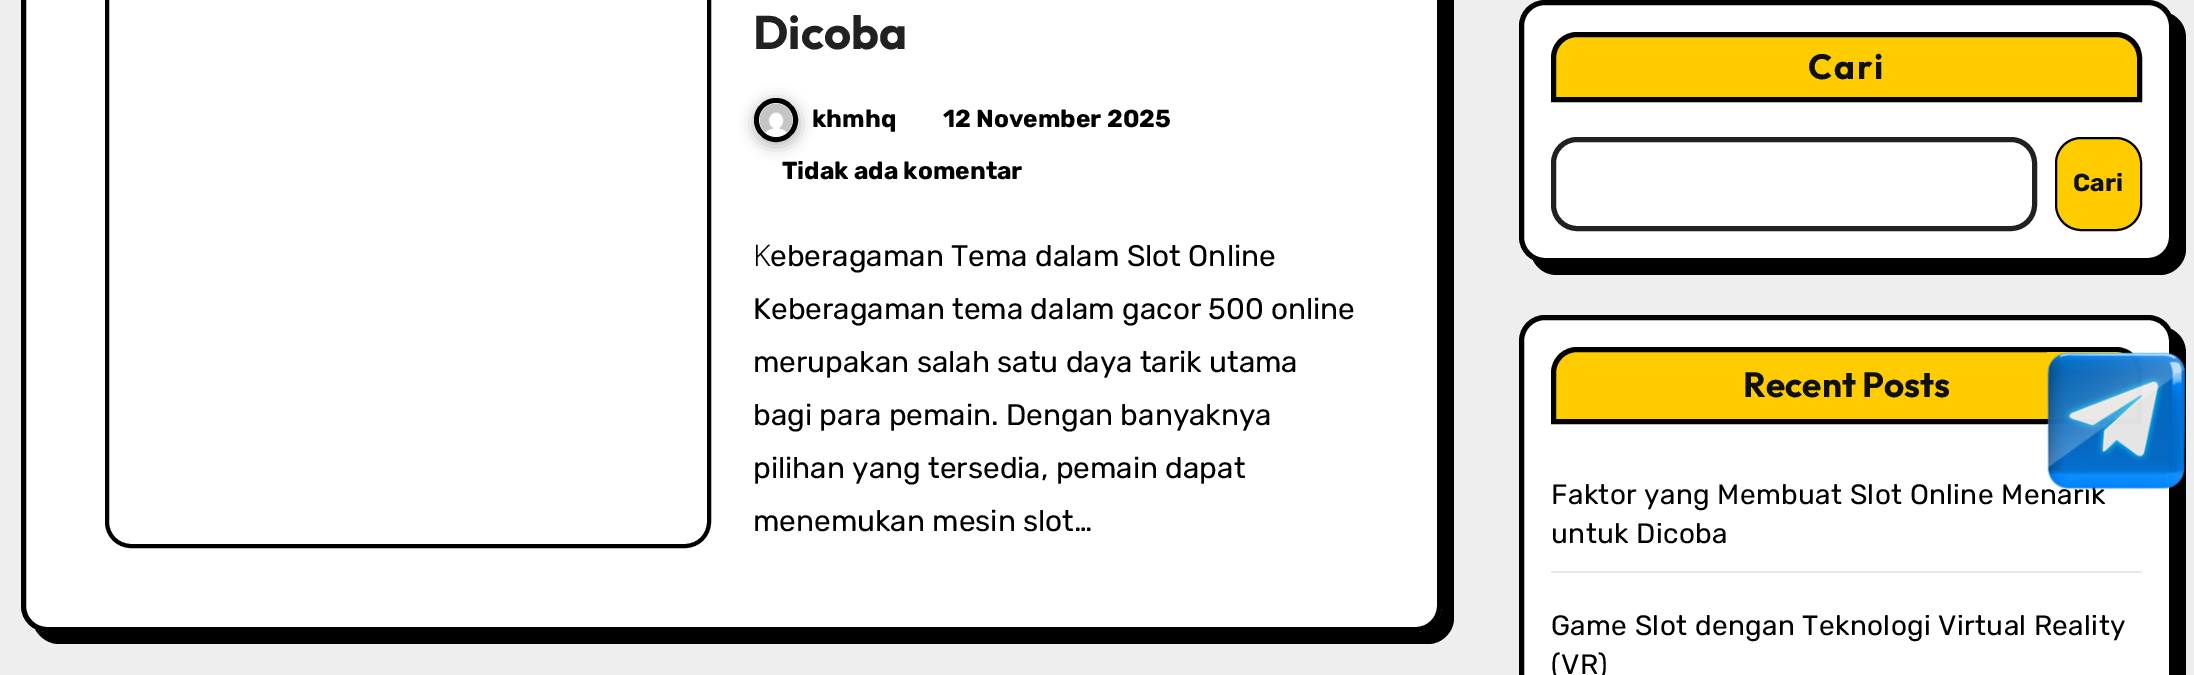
%!PS
<< /PageSize [2194 675] /PageUsesTransparency true >> setpagedevice
/rgb { 3 { 255 div 3 1 roll } repeat setrgbcolor } def
/font { [ exch dup neg 0 0 3 -1 roll 0 0 ] selectfont } def
/text { moveto show } def
/alpha { dup .setfillconstantalpha .setstrokeconstantalpha } def
/circle { newpath 0 360 arc closepath } def
/roundrect { 5 dict begin { /r /h /w /y /x } { exch def } forall
  x r add y moveto x w add y 2 copy h add r arct x w add y h add x 1 index r arct
  x y h add x y r arct x y 2 copy exch w add exch r arct closepath end } def
/shadow { 12 dict begin { /a /b /q /h /w /y /x } { exch def } forall gsave /was 0 def
  9 -2 -9 { dup b mul 4 div /e exch def 1 sub .425 mul 2.718 exch exp 1 add a .99 .min exch div /now exch def
    1 1 now sub 1 was sub div sub alpha /was now def
    w h .min e 2 mul add 0 gt { x e sub y e sub w e 2 mul add h e 2 mul add
      q e add b .6 mul add w h .min 2 div e add .min 0 .max roundrect fill } if } for grestore end } def
/picture { 5 dict begin { /h /w /y /x /name } { exch def } forall
  gsave x y translate w h scale
  w h 8 [w 0 0 h 0 0] name (r) file false 3 colorimage grestore end } def
0 .pushpdf14devicefilter
0 675 translate 1 -1 scale
4 setmiterlimit
238 238 238 rgb
0 0 2194 675 rectfill
0 0 0 rgb
35 629 moveto 5 9 14 15 24 15 rcurveto 1369 0 rlineto 14 0 26 -12 26 -26 rcurveto 0 -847 rlineto 0 -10 -6 -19 -14 -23 rcurveto 1 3 2 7 2 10 rcurveto 0 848 rlineto 0 14 -12 26 -26 26 rcurveto -1369 0 rlineto -4 0 -8 -1 -12 -3 rcurveto closepath fill
255 255 255 rgb
23.5 -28.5 1416 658 23.5 roundrect gsave fill grestore
0 0 0 rgb
5 setlinewidth
stroke
4 setlinewidth
107 -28 602 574 24 roundrect stroke
33 33 33 rgb
753 100 47 47 23.5 7 0.3 shadow
0 0 0 rgb
5 setlinewidth
776 120 19.5 circle stroke
(img_01.rgb) 759 103 34 34 picture
1533 260 moveto 4 9 13 15 24 15 rcurveto 603 0 rlineto 14 0 26 -12 26 -26 rcurveto 0 -211 rlineto 0 -11 -6 -20 -15 -24 rcurveto 1 4 3 8 3 12 rcurveto 0 210 rlineto 0 15 -12 26 -27 26 rcurveto -602 0 rlineto -4 0 -8 -1 -12 -2 rcurveto closepath fill
255 255 255 rgb
1521.5 2.5 650 258 23.5 roundrect gsave fill grestore
0 0 0 rgb
stroke
255 204 0 rgb
1577 34.5 moveto 539 0 rlineto 13 0 23.5 10.5 23.5 23.5 rcurveto 0 41.5 rlineto -586 0 rlineto 0 -41.5 rlineto 0 -13 10.5 -23.5 23.5 -23.5 rcurveto closepath gsave fill grestore
0 0 0 rgb
stroke
33 33 33 rgb
1553.5 139.5 481 89 23.5 roundrect stroke
255 204 0 rgb
2056 138 85 92 25 roundrect gsave fill grestore
0 0 0 rgb
2 setlinewidth
stroke
1533 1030 moveto 4 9 13 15 24 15 rcurveto 603 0 rlineto 14 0 26 -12 26 -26 rcurveto 0 -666 rlineto 0 -11 -6 -20 -15 -24 rcurveto 1 4 3 8 3 12 rcurveto 0 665 rlineto 0 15 -12 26 -27 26 rcurveto -602 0 rlineto -4 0 -8 -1 -12 -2 rcurveto closepath fill
255 255 255 rgb
1521.5 317.5 650 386 23.5 roundrect gsave fill grestore
0 0 0 rgb
5 setlinewidth
stroke
255 204 0 rgb
1577 349.5 moveto 539 0 rlineto 13 0 23.5 10.5 23.5 23.5 rcurveto 0 48.5 rlineto -586 0 rlineto 0 -48.5 rlineto 0 -13 10.5 -23.5 23.5 -23.5 rcurveto closepath gsave fill grestore
0 0 0 rgb
stroke
226 232 240 rgb
1551 571 591 2 rectfill
/Outfit-Bold 47 font
33 33 33 rgb
(Dicoba) 753 49 text
/Rubik-Bold 24.5 font
0 0 0 rgb
(khmhq) 812 127 text
(12 November 2025) 943 127 text
(Tidak ada komentar) 782 179 text
/NotoSans-Light 29.75 font
(K) 753 266 text
/Rubik-Light 29.75 font
(eberagaman Tema dalam Slot Online) 770 266 text
(Keberagaman tema dalam gacor 500 online) 753 319 text
(merupakan salah satu daya tarik utama) 753 372 text
(bagi para pemain. Dengan banyaknya) 753 425 text
(pilihan yang tersedia, pemain dapat) 753 478 text
(menemukan mesin slot…) 753 531 text
/Outfit-Bold 35 font
15 16 18 rgb
1808 79 moveto 2 0 (Cari) ashow
/Rubik-Bold 24.5 font
(Cari) 2073 191 text
/Outfit-Bold 35 font
(Recent Posts) 1743 397 text
/Rubik-Light 28 font
0 0 0 rgb
1551 504 moveto 0.35 0 (Faktor yang Membuat Slot Online Menarik) ashow
1551 543 moveto 0.35 0 (untuk Dicoba) ashow
1551 635 moveto 0.35 0 (Game Slot dengan Teknologi Virtual Reality) ashow
1551 674 moveto 0.35 0 (\(VR\)) ashow
(img_02.rgb) 2047 352 139 138 picture
.poppdf14devicefilter showpage
